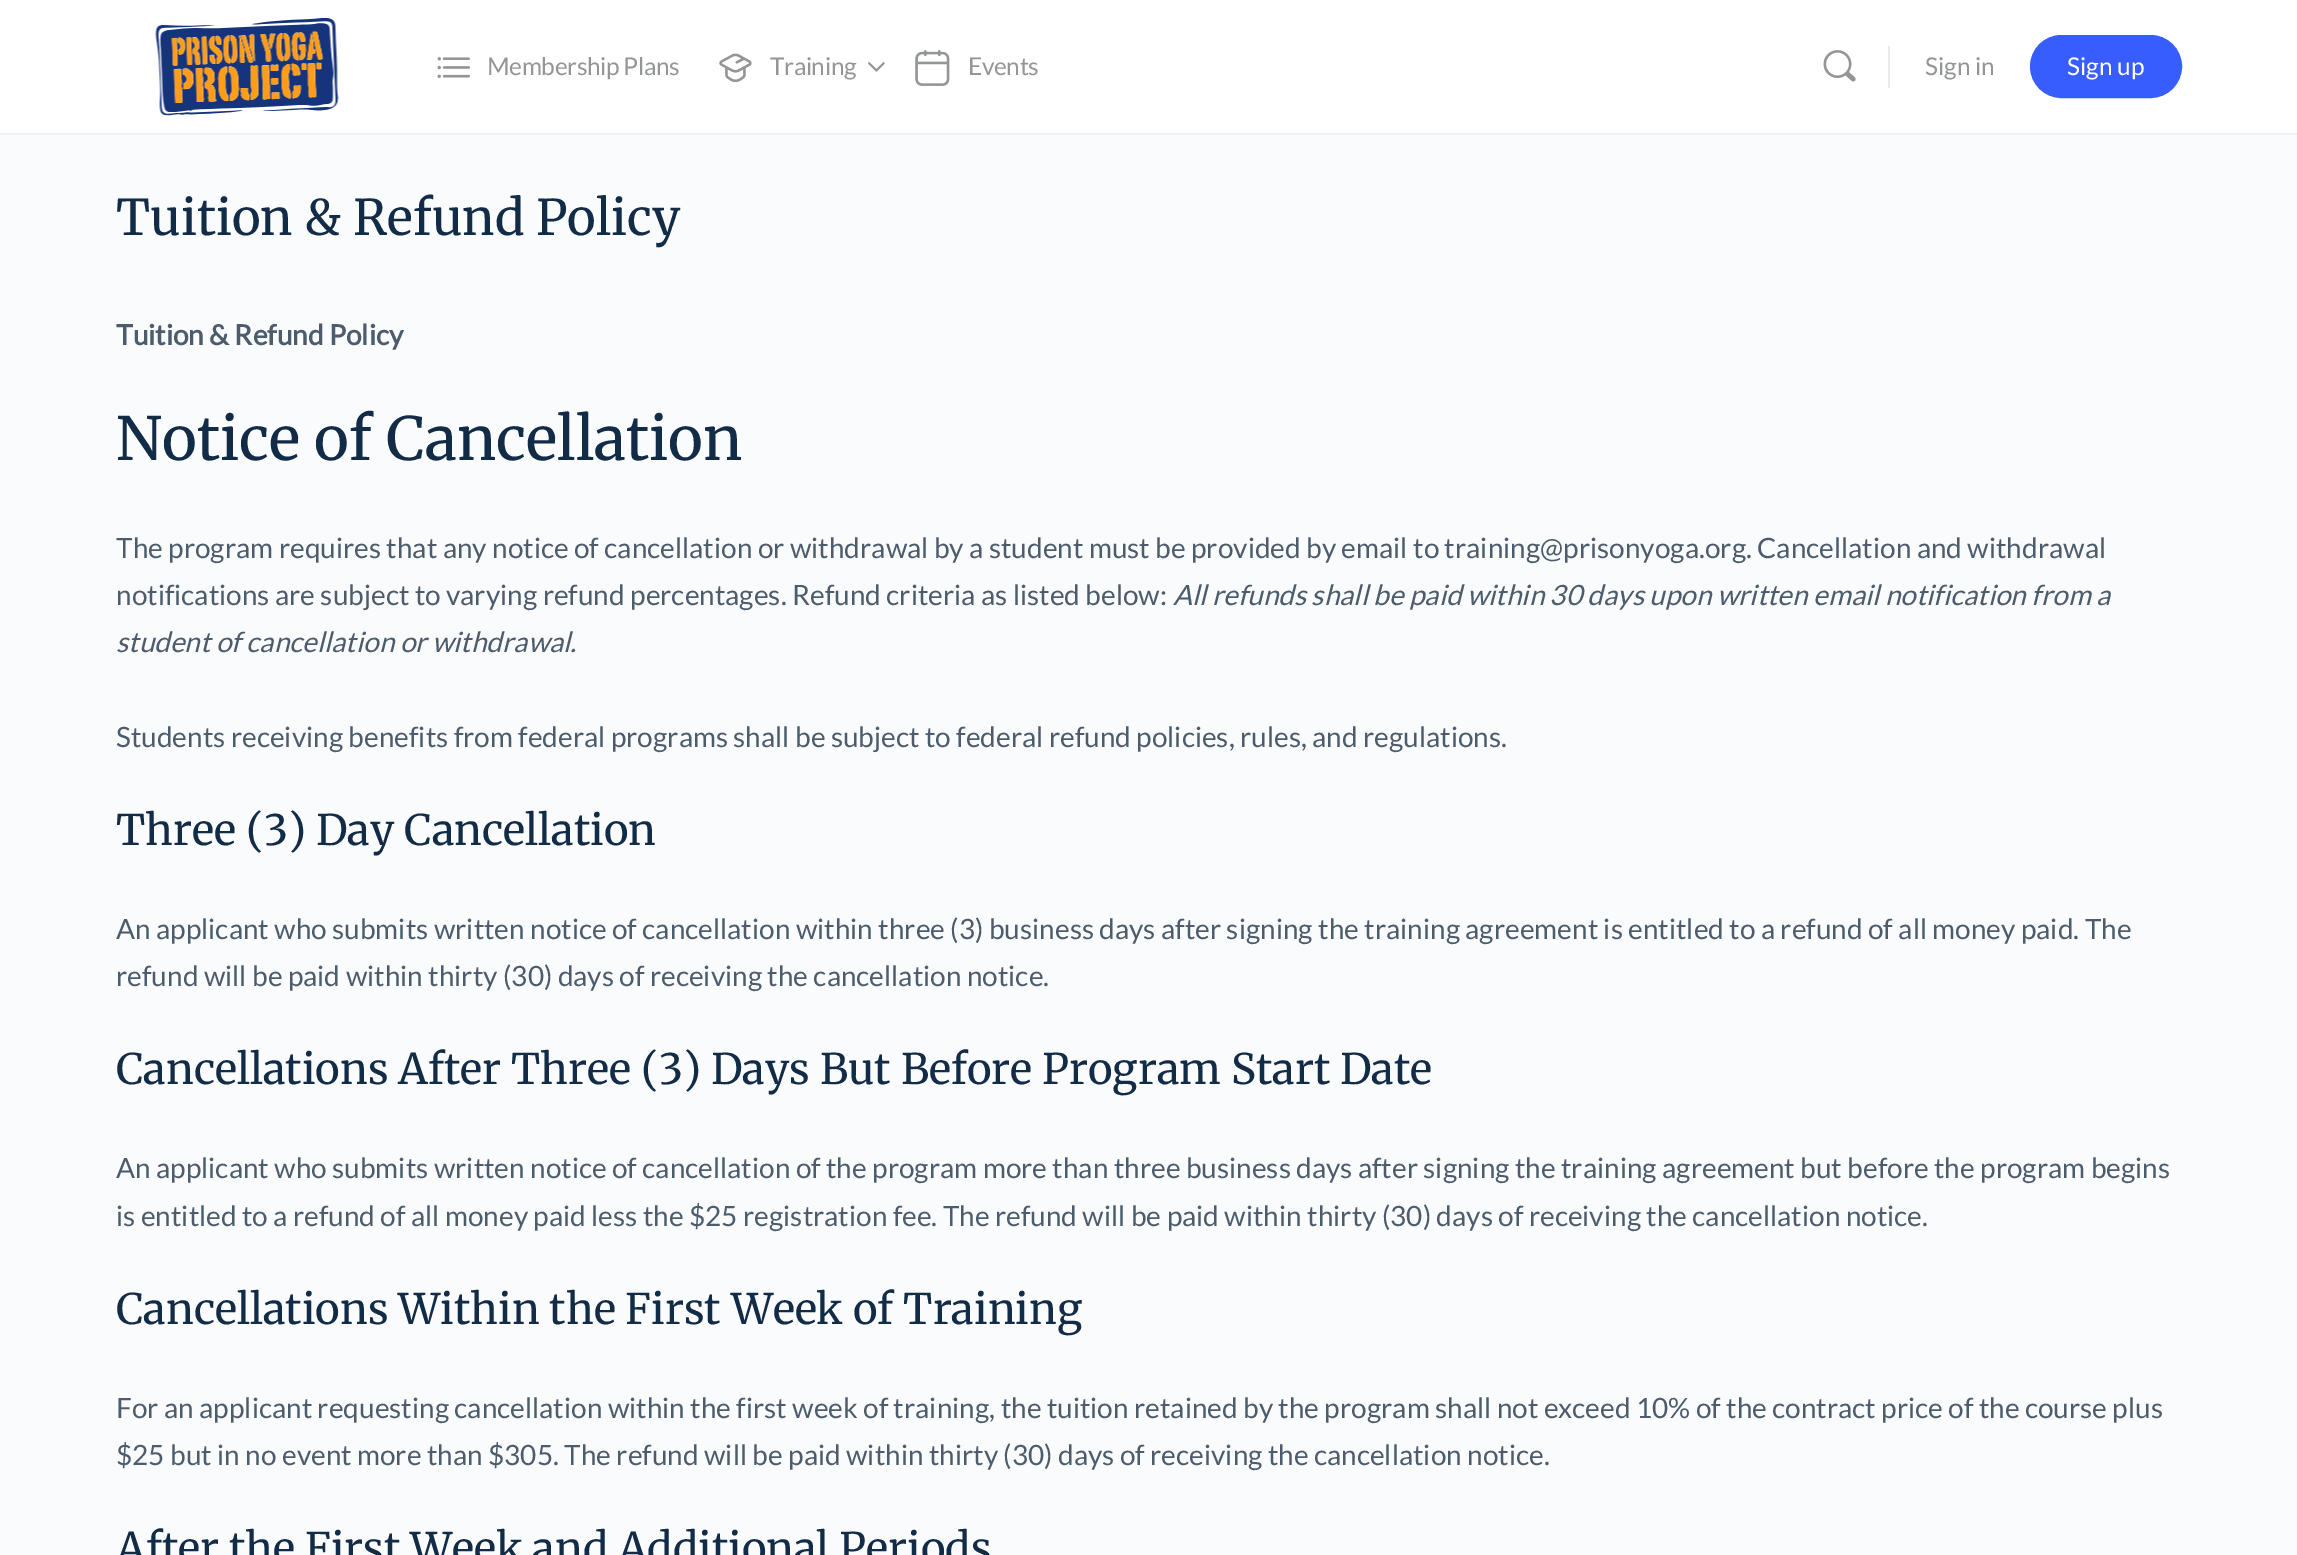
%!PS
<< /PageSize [2297 1555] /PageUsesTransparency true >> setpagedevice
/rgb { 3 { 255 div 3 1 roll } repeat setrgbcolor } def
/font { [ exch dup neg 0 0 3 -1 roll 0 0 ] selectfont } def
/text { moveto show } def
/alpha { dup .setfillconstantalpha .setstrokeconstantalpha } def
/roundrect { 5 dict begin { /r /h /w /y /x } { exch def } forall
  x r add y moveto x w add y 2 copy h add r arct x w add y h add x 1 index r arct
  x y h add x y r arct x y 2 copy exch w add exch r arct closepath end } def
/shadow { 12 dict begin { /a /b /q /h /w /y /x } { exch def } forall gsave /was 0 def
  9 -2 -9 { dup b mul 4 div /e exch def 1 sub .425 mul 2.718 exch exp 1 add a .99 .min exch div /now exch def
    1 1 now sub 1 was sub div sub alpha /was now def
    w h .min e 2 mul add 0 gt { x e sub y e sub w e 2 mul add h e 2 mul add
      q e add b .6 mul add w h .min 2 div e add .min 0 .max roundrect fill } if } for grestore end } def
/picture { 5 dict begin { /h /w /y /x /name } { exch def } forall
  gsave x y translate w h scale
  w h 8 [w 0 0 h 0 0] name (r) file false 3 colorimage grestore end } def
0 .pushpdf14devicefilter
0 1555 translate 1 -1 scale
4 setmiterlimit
250 251 253 rgb
0 0 2297 1555 rectfill
65 71 108 rgb
0 0 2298 133 0 1 0.15 shadow
0.05 alpha
139 141 157 rgb
0 133 moveto 0 2 rlineto 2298 0 rlineto 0 -133 rlineto 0 131 rlineto closepath fill
1 alpha
255 255 255 rgb
0 0 2297 133 rectfill
(img_01.rgb) 155 18 184 98 picture
(img_02.rgb) 437 57 33 21 picture
(img_03.rgb) 719 53 33 30 picture
(img_04.rgb) 868 62 17 10 picture
(img_05.rgb) 915 50 35 36 picture
(img_06.rgb) 1823 50 33 32 picture
233 234 234 rgb
1888 46 2 42 rectfill
56 93 255 rgb
2031 36 150 61 30.5 roundrect gsave fill grestore
2 setlinewidth
stroke
/Lato-Regular 24.5 font
147 149 151 rgb
487 75 moveto -0.4 0 (Membership Plans) ashow
770 75 moveto -0.4 0 (Training) ashow
968 75 moveto -0.4 0 (Events) ashow
(Sign in) 1925 75 text
255 255 255 rgb
(Sign up) 2067 75 text
/Merriweather-Light 49 font
18 43 70 rgb
(Tuition & Refund Policy) 116 235 text
/Lato-Bold 28 font
77 92 109 rgb
(Tuition & Refund Policy) 116 345 text
/Merriweather-Light 59.5 font
18 43 70 rgb
(Notice of Cancellation) 116 460 text
/Lato-Regular 28 font
77 92 109 rgb
(The program requires that any notice of cancellation or withdrawal by a student must be provided by email to training@prisonyoga.org. Cancellation and withdrawal) 116 558 text
(notifications are subject to varying refund percentages. Refund criteria as listed below:) 116 605 text
/Lato-Italic 28 font
(All refunds shall be paid within 30 days upon written email notification from a) 1173 605 text
(student of cancellation or withdrawal.) 116 652 text
/Lato-Regular 28 font
(Students receiving benefits from federal programs shall be subject to federal refund policies, rules, and regulations.) 116 747 text
/Merriweather-Light 42 font
18 43 70 rgb
(Three \(3\) Day Cancellation) 116 845 text
/Lato-Regular 28 font
77 92 109 rgb
(An applicant who submits written notice of cancellation within three \(3\) business days after signing the training agreement is entitled to a refund of all money paid. The) 116 939 text
(refund will be paid within thirty \(30\) days of receiving the cancellation notice.) 116 986 text
/Merriweather-Light 42 font
18 43 70 rgb
(Cancellations After Three \(3\) Days But Before Program Start Date) 116 1084 text
/Lato-Regular 28 font
77 92 109 rgb
(An applicant who submits written notice of cancellation of the program more than three business days after signing the training agreement but before the program begins) 116 1178 text
(is entitled to a refund of all money paid less the $25 registration fee. The refund will be paid within thirty \(30\) days of receiving the cancellation notice.) 116 1226 text
/Merriweather-Light 42 font
18 43 70 rgb
(Cancellations Within the First Week of Training) 116 1324 text
/Lato-Regular 28 font
77 92 109 rgb
(For an applicant requesting cancellation within the first week of training, the tuition retained by the program shall not exceed 10% of the contract price of the course plus) 116 1418 text
($25 but in no event more than $305. The refund will be paid within thirty \(30\) days of receiving the cancellation notice.) 116 1465 text
/Merriweather-Light 42 font
18 43 70 rgb
(After the First Week and Additional Periods) 116 1563 text
.poppdf14devicefilter showpage
